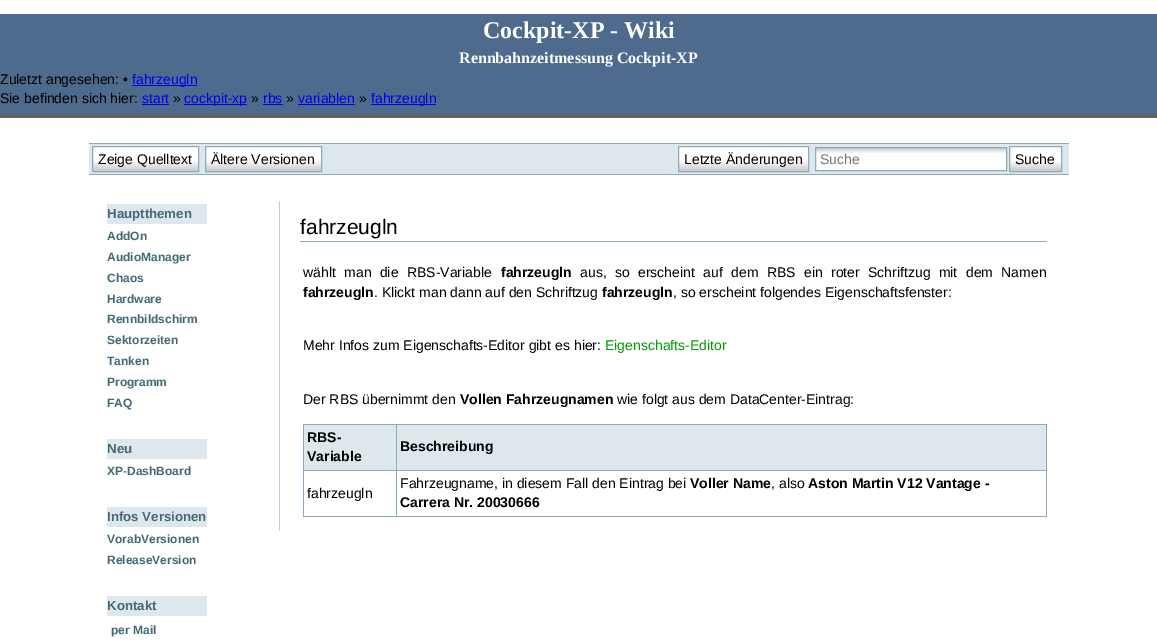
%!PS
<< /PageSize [1157 642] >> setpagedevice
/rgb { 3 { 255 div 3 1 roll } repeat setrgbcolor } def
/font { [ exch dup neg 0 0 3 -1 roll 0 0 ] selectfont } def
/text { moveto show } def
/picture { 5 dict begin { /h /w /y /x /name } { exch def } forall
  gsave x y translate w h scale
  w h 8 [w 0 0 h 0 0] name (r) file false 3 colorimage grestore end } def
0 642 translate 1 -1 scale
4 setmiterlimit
255 255 255 rgb
0 0 1157 642 rectfill
78 107 142 rgb
0 14 1157 100 rectfill
99 99 99 rgb
0 114 1157 4 rectfill
0 0 238 rgb
132 85 65 1 rectfill
142 104 27 1 rectfill
184 104 63 1 rectfill
263 104 20 1 rectfill
298 104 57 1 rectfill
371 104 65 1 rectfill
222 231 236 rgb
89 144 980 30 rectfill
140 172 187 rgb
89 143 980 1 rectfill
89 174 980 1 rectfill
255 255 255 rgb
93 147 105 23 rectfill
(img_01.rgb) 93 161 105 10 picture
140 172 187 rgb
92.5 146.5 106 25 rectstroke
255 255 255 rgb
206 147 115 23 rectfill
(img_02.rgb) 206 161 115 10 picture
140 172 187 rgb
205.5 146.5 116 25 rectstroke
255 255 255 rgb
679 147 129 23 rectfill
(img_03.rgb) 679 161 129 10 picture
140 172 187 rgb
678.5 146.5 130 25 rectstroke
255 255 255 rgb
816 148 190 22 rectfill
(img_04.rgb) 816 148 190 5 picture
140 172 187 rgb
815.5 147.5 191 23 rectstroke
255 255 255 rgb
1010 147 51 23 rectfill
(img_05.rgb) 1010 161 51 10 picture
140 172 187 rgb
1009.5 146.5 52 25 rectstroke
222 231 236 rgb
107 204 100 20 rectfill
107 439 100 20 rectfill
107 507 100 20 rectfill
107 596 100 20 rectfill
204 204 204 rgb
279 201 1 330 rectfill
140 172 187 rgb
300 241 747 1 rectfill
222 231 236 rgb
304 425 92 45 rectfill
140 172 187 rgb
396 424 651 1 rectfill
396 470 651 1 rectfill
1046 470 1 47 rectfill
396 516 651 1 rectfill
396 470 1 47 rectfill
303 470 94 1 rectfill
396 424 1 47 rectfill
303 424 94 1 rectfill
303 516 94 1 rectfill
303 470 1 47 rectfill
303 424 1 47 rectfill
222 231 236 rgb
397 425 649 45 rectfill
140 172 187 rgb
1046 424 1 47 rectfill
/LiberationSerif-Bold 24 font
255 255 255 rgb
(Cockpit-XP - Wiki) 483 38 text
/LiberationSerif-Bold 16 font
(Rennbahnzeitmessung Cockpit-XP) 459 63 text
/LiberationSans-Regular 14 font
0 0 0 rgb
(Zuletzt angesehen: •) 0 84 text
0 0 238 rgb
(fahrzeugln) 132 84 text
0 0 0 rgb
(Sie befinden sich hier:) 0 103 text
0 0 238 rgb
(start) 142 103 text
0 0 0 rgb
(») 173 103 text
0 0 238 rgb
(cockpit-xp) 184 103 text
0 0 0 rgb
(») 251 103 text
0 0 238 rgb
(rbs) 263 103 text
0 0 0 rgb
(») 286 103 text
0 0 238 rgb
(variablen) 298 103 text
0 0 0 rgb
(») 359 103 text
0 0 238 rgb
(fahrzeugln) 371 103 text
0 0 0 rgb
(Zeige Quelltext) 98 164 text
(Ältere Versionen) 211 164 text
(Letzte Änderungen) 684 164 text
117 117 117 rgb
(Suche) 820 164 text
0 0 0 rgb
(Suche) 1015 164 text
/LiberationSans-Bold 13.25 font
67 105 118 rgb
(Hauptthemen) 107 218 text
/LiberationSans-Bold 12 font
(AddOn) 107 240 text
(AudioManager) 107 261 text
(Chaos) 107 282 text
(Hardware) 107 303 text
(Rennbildschirm) 107 323 text
(Sektorzeiten) 107 344 text
(Tanken) 107 365 text
(Programm) 107 386 text
(FAQ) 107 407 text
/LiberationSans-Bold 13.25 font
(Neu) 107 453 text
/LiberationSans-Bold 12 font
(XP-DashBoard) 107 475 text
/LiberationSans-Bold 13.25 font
(Infos Versionen) 107 521 text
/LiberationSans-Bold 12 font
(VorabVersionen) 107 543 text
(ReleaseVersion) 107 564 text
/LiberationSans-Bold 13.25 font
(Kontakt) 107 610 text
/LiberationSans-Bold 12 font
(per Mail) 111 634 text
/LiberationSans-Regular 21 font
0 0 0 rgb
(fahrzeugln) 300 234 text
/LiberationSans-Regular 14 font
303 277 moveto 4.5 0 32 (wählt man die RBS-Variable) widthshow
/LiberationSans-Bold 14 font
(fahrzeugln) 501 277 text
/LiberationSans-Regular 14 font
580 277 moveto 4.5 0 32 (aus, so erscheint auf dem RBS ein roter Schriftzug mit dem Namen) widthshow
/LiberationSans-Bold 14 font
(fahrzeugln) 303 297 text
/LiberationSans-Regular 14 font
(. Klickt man dann auf den Schriftzug) 374 297 text
/LiberationSans-Bold 14 font
(fahrzeugln) 602 297 text
/LiberationSans-Regular 14 font
(, so erscheint folgendes Eigenschaftsfenster:) 673 297 text
(Mehr Infos zum Eigenschafts-Editor gibt es hier:) 303 350 text
0 153 0 rgb
(Eigenschafts-Editor) 605 350 text
0 0 0 rgb
(Der RBS übernimmt den) 303 404 text
/LiberationSans-Bold 14 font
(Vollen Fahrzeugnamen) 460 404 text
/LiberationSans-Regular 14 font
(wie folgt aus dem DataCenter-Eintrag:) 617 404 text
/LiberationSans-Bold 14 font
(RBS-) 307 442 text
(Variable) 307 461 text
(Beschreibung) 400 451 text
/LiberationSans-Regular 14 font
(fahrzeugln) 307 498 text
(Fahrzeugname, in diesem Fall den Eintrag bei) 400 488 text
/LiberationSans-Bold 14 font
(Voller Name) 690 488 text
/LiberationSans-Regular 14 font
(, also) 771 488 text
/LiberationSans-Bold 14 font
(Aston Martin V12 Vantage -) 808 488 text
(Carrera Nr. 20030666) 400 507 text
showpage
